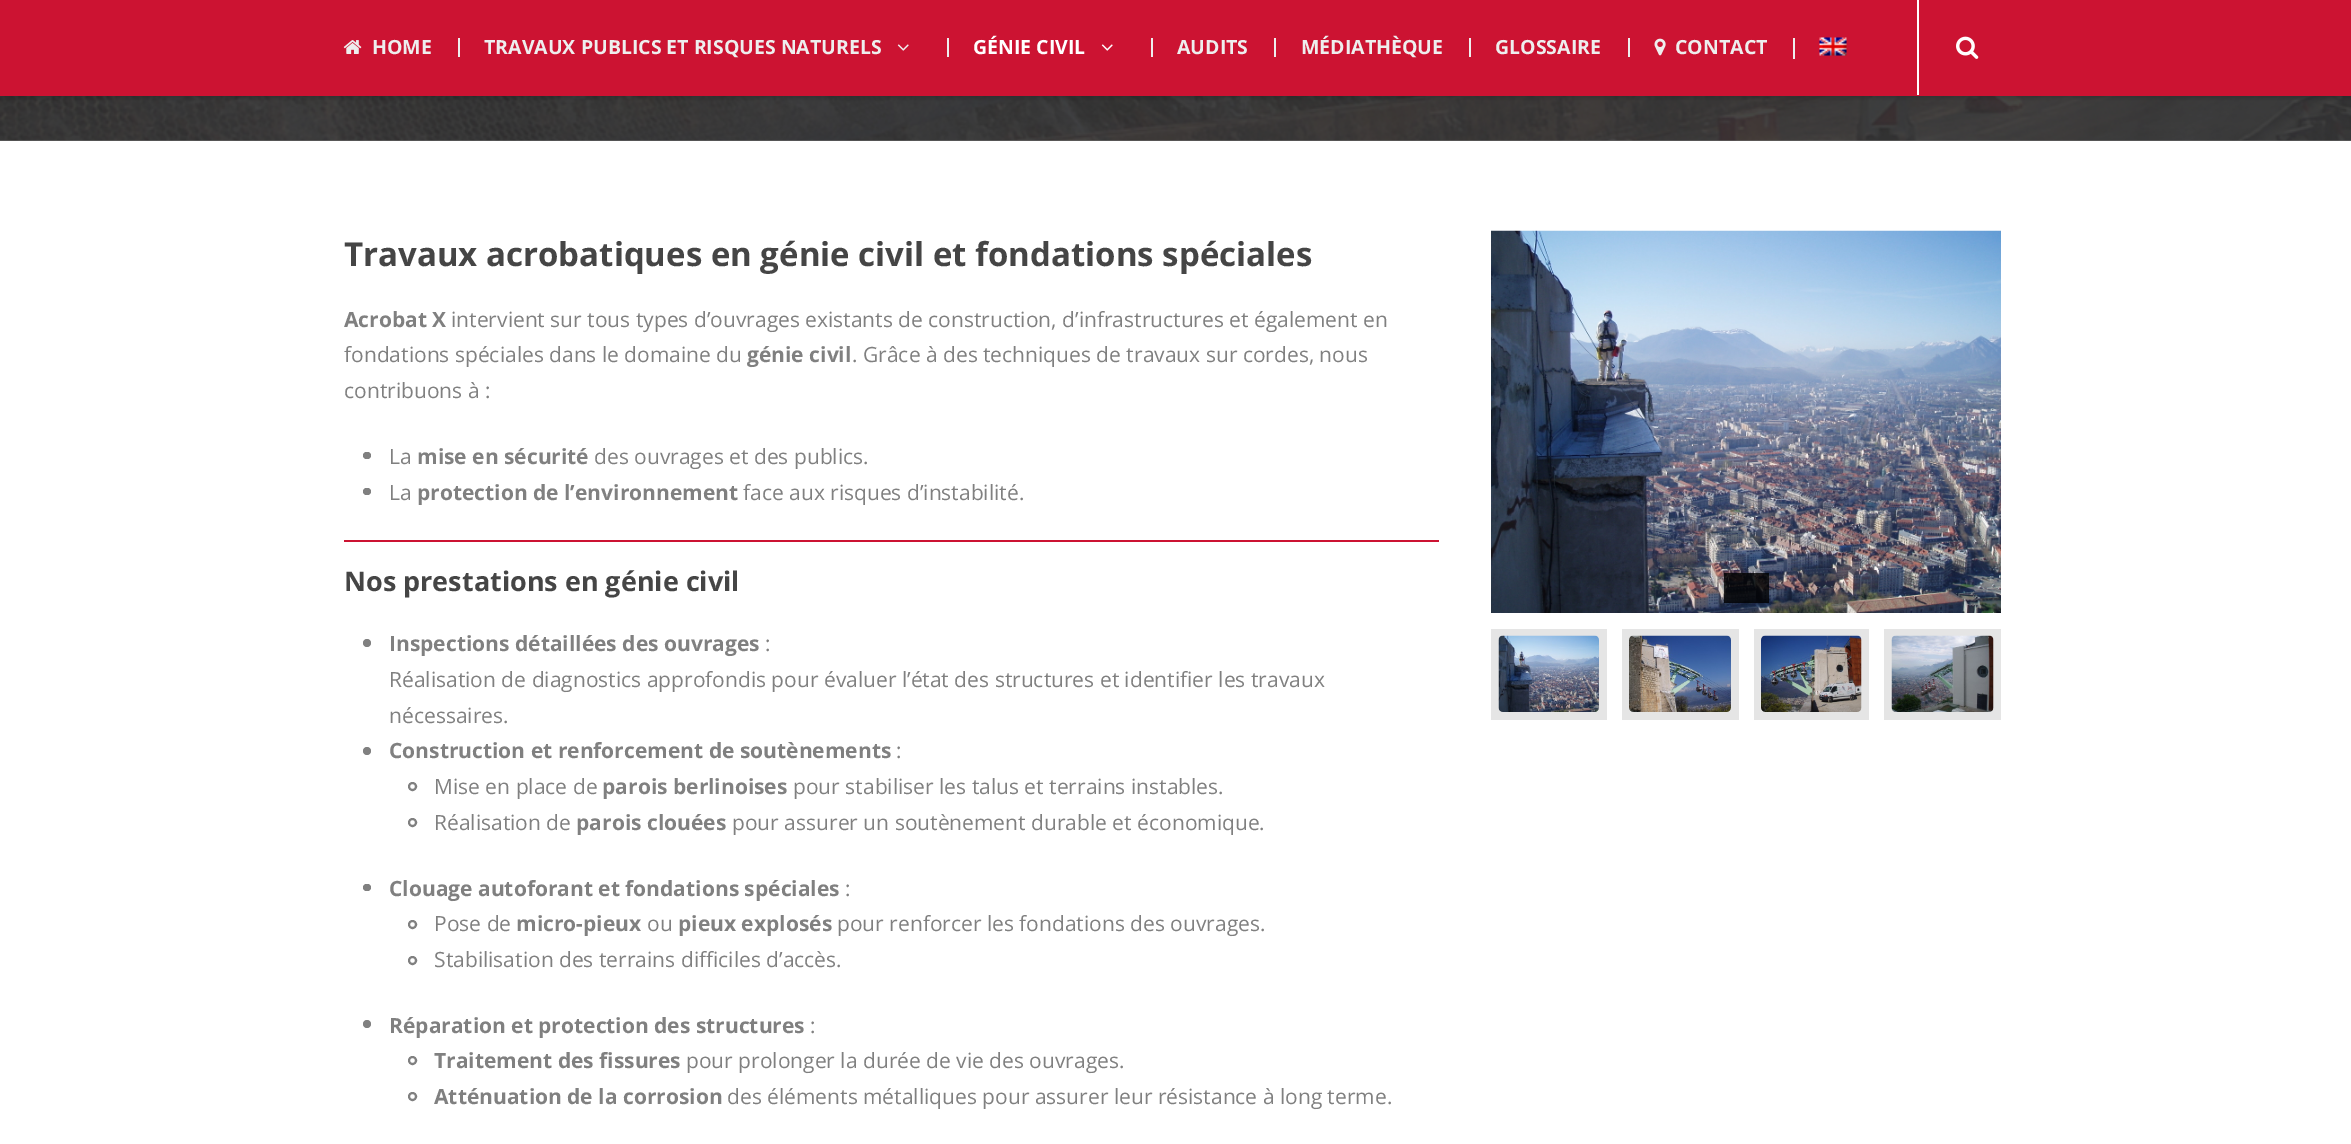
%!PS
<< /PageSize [2351 1144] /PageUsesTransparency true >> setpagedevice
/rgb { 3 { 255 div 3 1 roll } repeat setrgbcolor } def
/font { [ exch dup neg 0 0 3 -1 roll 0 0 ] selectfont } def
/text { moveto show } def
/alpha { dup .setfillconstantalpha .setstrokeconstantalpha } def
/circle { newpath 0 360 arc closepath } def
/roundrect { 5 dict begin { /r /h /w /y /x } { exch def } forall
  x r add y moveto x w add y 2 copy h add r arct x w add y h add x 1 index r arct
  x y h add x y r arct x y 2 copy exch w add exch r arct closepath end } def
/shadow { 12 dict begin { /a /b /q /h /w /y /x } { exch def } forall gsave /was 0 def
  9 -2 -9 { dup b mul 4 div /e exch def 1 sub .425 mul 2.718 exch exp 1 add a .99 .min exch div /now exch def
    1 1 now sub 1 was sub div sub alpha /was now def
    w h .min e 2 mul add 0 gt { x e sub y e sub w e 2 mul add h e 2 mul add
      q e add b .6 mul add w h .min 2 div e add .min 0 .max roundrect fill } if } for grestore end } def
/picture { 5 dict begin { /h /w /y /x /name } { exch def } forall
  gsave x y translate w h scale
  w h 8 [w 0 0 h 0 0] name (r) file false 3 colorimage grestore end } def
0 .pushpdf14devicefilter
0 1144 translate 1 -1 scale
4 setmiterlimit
255 255 255 rgb
0 0 2351 1144 rectfill
115 115 115 rgb
0 140 2351 1 rectfill
(img_07.rgb) 0 96 2351 45 picture
0 0 0 rgb
0 3 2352 96 0 1.5 0.12 shadow
204 19 50 rgb
0 0 2351 96 rectfill
(img_01.rgb) 343 40 19 14 picture
238 238 238 rgb
458 38 2 19 rectfill
(img_02.rgb) 897 44 12 7 picture
947 38 2 19 rectfill
(img_03.rgb) 1101 44 12 7 picture
1151 38 2 19 rectfill
1274 38 2 19 rectfill
1469 38 2 19 rectfill
1628 38 2 19 rectfill
(img_04.rgb) 1654 38 12 18 picture
1793 38 2 21 rectfill
(img_05.rgb) 1819 37 28 19 picture
255 255 255 rgb
1917 0 2 95 rectfill
(img_06.rgb) 1956 36 23 23 picture
128 128 128 rgb
363 452 8 7 3.5 roundrect fill
363 488 8 7 3.5 roundrect fill
204 19 50 rgb
344 540 1095 2 rectfill
128 128 128 rgb
367 643 4 circle fill
367 751 4 circle fill
2 setlinewidth
412.5 786.5 3.5 circle stroke
412.5 822.5 3.5 circle stroke
363 884 8 7 3.5 roundrect fill
412.5 924.5 3.5 circle stroke
412.5 960.5 3.5 circle stroke
367 1024 4 circle fill
412.5 1060.5 3.5 circle stroke
412.5 1096.5 3.5 circle stroke
(img_08.rgb) 1491 230 510 383 picture
0.8 alpha
0 0 0 rgb
1724 573 45 30 rectfill
1 alpha
229 229 229 rgb
1491 629 116 91 rectfill
(img_09.rgb) 1498 635 101 77 picture
1622 629 117 91 rectfill
(img_10.rgb) 1629 635 102 77 picture
1754 629 115 91 rectfill
(img_11.rgb) 1761 635 101 77 picture
1884 629 117 91 rectfill
(img_12.rgb) 1891 635 103 77 picture
/OpenSans-Bold 19.5 font
238 238 238 rgb
(HOME) 372 54 text
(TRAVAUX PUBLICS ET RISQUES NATURELS) 484 54 text
255 255 255 rgb
(GÉNIE CIVIL) 973 54 text
238 238 238 rgb
(AUDITS) 1177 54 text
(MÉDIATHÈQUE) 1301 54 text
(GLOSSAIRE) 1495 54 text
(CONTACT) 1675 54 text
/OpenSans-Bold 33 font
69 69 69 rgb
(Travaux acrobatiques en génie civil et fondations spéciales) 344 266 text
/OpenSans-Bold 21 font
128 128 128 rgb
(Acrobat X) 344 327 text
/OpenSans-Regular 21 font
(intervient sur tous types d’ouvrages existants de construction, d’infrastructures et également en) 451 327 text
(fondations spéciales dans le domaine du) 344 362 text
/OpenSans-Bold 21 font
(génie civil) 747 362 text
/OpenSans-Regular 21 font
(. Grâce à des techniques de travaux sur cordes, nous) 852 362 text
(contribuons à :) 344 398 text
(La) 389 464 text
/OpenSans-Bold 21 font
(mise en sécurité) 417 464 text
/OpenSans-Regular 21 font
(des ouvrages et des publics.) 594 464 text
(La) 389 500 text
/OpenSans-Bold 21 font
(protection de l’environnement) 417 500 text
/OpenSans-Regular 21 font
(face aux risques d’instabilité.) 743 500 text
/OpenSans-Bold 27 font
69 69 69 rgb
(Nos prestations en génie civil) 344 591 text
/OpenSans-Bold 21 font
128 128 128 rgb
(Inspections détaillées des ouvrages) 389 651 text
/OpenSans-Regular 21 font
(:) 765 651 text
(Réalisation de diagnostics approfondis pour évaluer l’état des structures et identifier les travaux) 389 687 text
(nécessaires.) 389 723 text
/OpenSans-Bold 21 font
(Construction et renforcement de soutènements) 389 758 text
/OpenSans-Regular 21 font
(:) 896 758 text
(Mise en place de) 434 794 text
/OpenSans-Bold 21 font
(parois berlinoises) 602 794 text
/OpenSans-Regular 21 font
(pour stabiliser les talus et terrains instables.) 793 794 text
(Réalisation de) 434 830 text
/OpenSans-Bold 21 font
(parois clouées) 576 830 text
/OpenSans-Regular 21 font
(pour assurer un soutènement durable et économique.) 732 830 text
/OpenSans-Bold 21 font
(Clouage autoforant et fondations spéciales) 389 896 text
/OpenSans-Regular 21 font
(:) 845 896 text
(Pose de) 434 931 text
/OpenSans-Bold 21 font
(micro-pieux) 516 931 text
/OpenSans-Regular 21 font
(ou) 647 931 text
/OpenSans-Bold 21 font
(pieux explosés) 678 931 text
/OpenSans-Regular 21 font
(pour renforcer les fondations des ouvrages.) 837 931 text
(Stabilisation des terrains difficiles d’accès.) 434 967 text
/OpenSans-Bold 21 font
(Réparation et protection des structures) 389 1033 text
/OpenSans-Regular 21 font
(:) 810 1033 text
/OpenSans-Bold 21 font
(Traitement des fissures) 434 1068 text
/OpenSans-Regular 21 font
(pour prolonger la durée de vie des ouvrages.) 686 1068 text
/OpenSans-Bold 21 font
(Atténuation de la corrosion) 434 1104 text
/OpenSans-Regular 21 font
(des éléments métalliques pour assurer leur résistance à long terme.) 727 1104 text
.poppdf14devicefilter showpage
